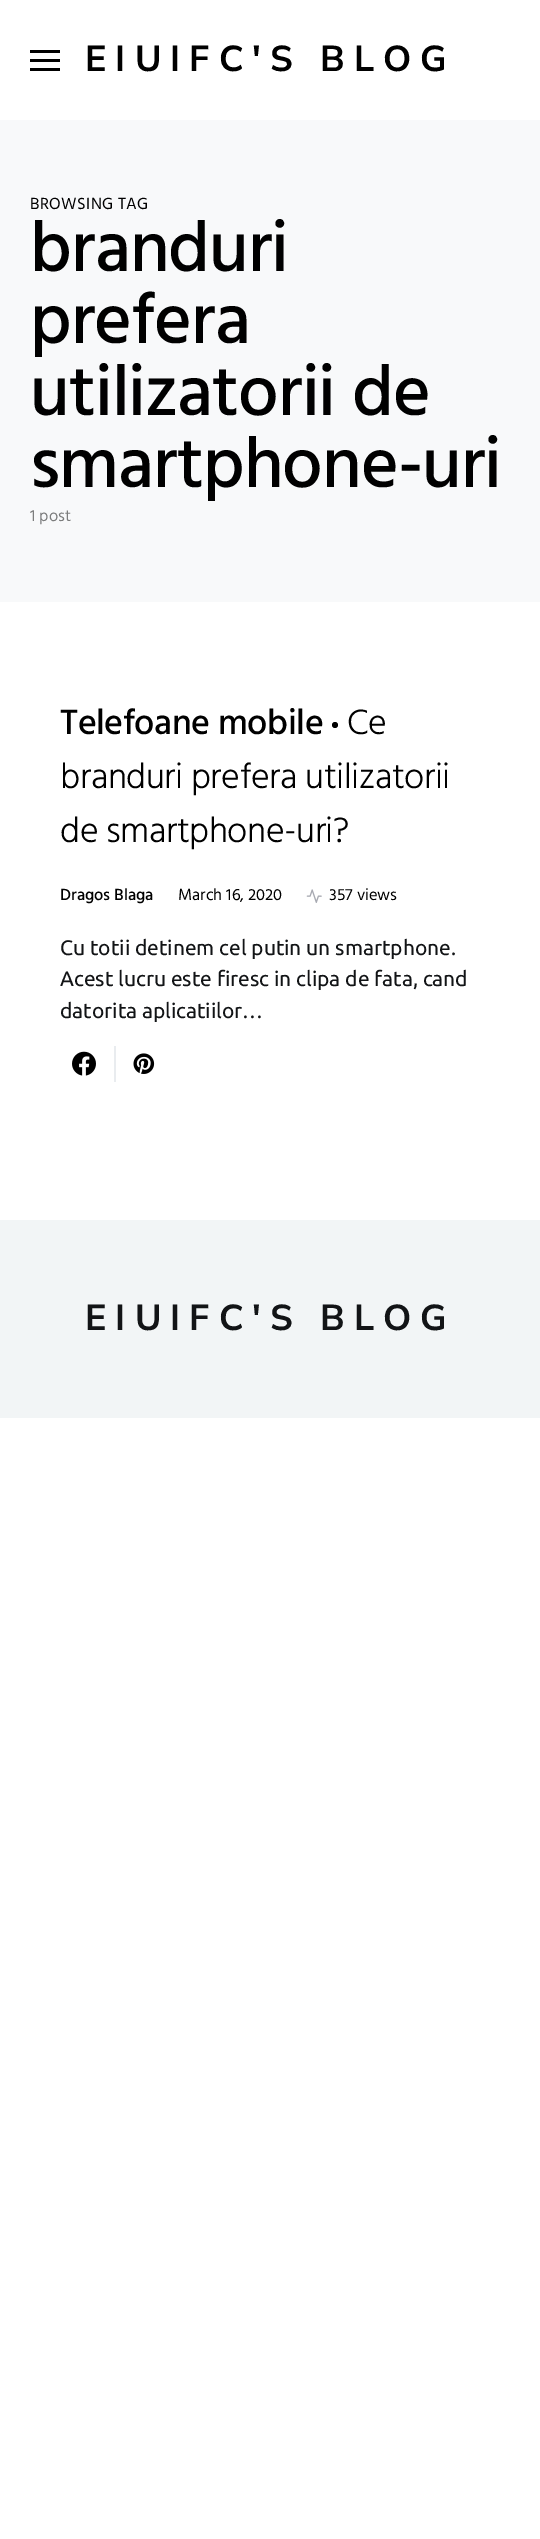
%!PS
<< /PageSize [540 2539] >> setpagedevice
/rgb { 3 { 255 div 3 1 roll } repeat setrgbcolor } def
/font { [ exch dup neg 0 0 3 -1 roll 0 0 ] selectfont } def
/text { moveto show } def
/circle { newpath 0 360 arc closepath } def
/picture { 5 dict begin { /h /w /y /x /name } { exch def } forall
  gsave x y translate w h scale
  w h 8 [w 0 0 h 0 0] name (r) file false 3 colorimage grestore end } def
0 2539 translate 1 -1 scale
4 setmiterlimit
255 255 255 rgb
0 0 540 2539 rectfill
0 0 0 rgb
30 50 30 3 rectfill
30 59 30 3 rectfill
30 68 30 3 rectfill
248 249 250 rgb
0 120 540 482 rectfill
0 0 0 rgb
335 725 3 circle fill
(img_01.rgb) 306 889 16 14 picture
233 236 239 rgb
114 1046 2 36 rectfill
(img_02.rgb) 72 1051 24 25 picture
(img_03.rgb) 133 1053 22 21 picture
242 245 246 rgb
0 1220 540 198 rectfill
/NunitoSans-ExtraLight 36 font
0 0 0 rgb
85 71 moveto 9 0 (EIUIFC'S BLOG) ashow
/Hind-Regular 16.5 font
30 209 moveto 0.4 0 (BROWSING TAG) ashow
/Hind-Medium 72 font
30 271 moveto -0.9 0 (branduri) ashow
30 343 moveto -0.9 0 (prefera) ashow
30 415 moveto -0.9 0 (utilizatorii de) ashow
30 487 moveto -0.9 0 (smartphone-uri) ashow
/Hind-Regular 16.5 font
124 125 125 rgb
(1 post) 30 521 text
/Hind-Medium 36 font
0 0 0 rgb
60 734 moveto -0.45 0 (Telefoane mobile) ashow
/Hind-Light 36 font
347 734 moveto -0.45 0 (Ce) ashow
60 788 moveto -0.45 0 (branduri prefera utilizatorii) ashow
60 842 moveto -0.45 0 (de smartphone-uri?) ashow
/Hind-Medium 16.5 font
(Dragos Blaga) 60 900 text
/Hind-Regular 16.5 font
(March 16, 2020) 178 900 text
(357 views) 329 900 text
/Ubuntu-Regular 21 font
18 20 22 rgb
(Cu totii detinem cel putin un smartphone.) 60 955 text
(Acest lucru este firesc in clipa de fata, cand) 60 986 text
(datorita aplicatiilor…) 60 1018 text
/NunitoSans-ExtraLight 36 font
85 1330 moveto 9 0 (EIUIFC'S BLOG) ashow
showpage
